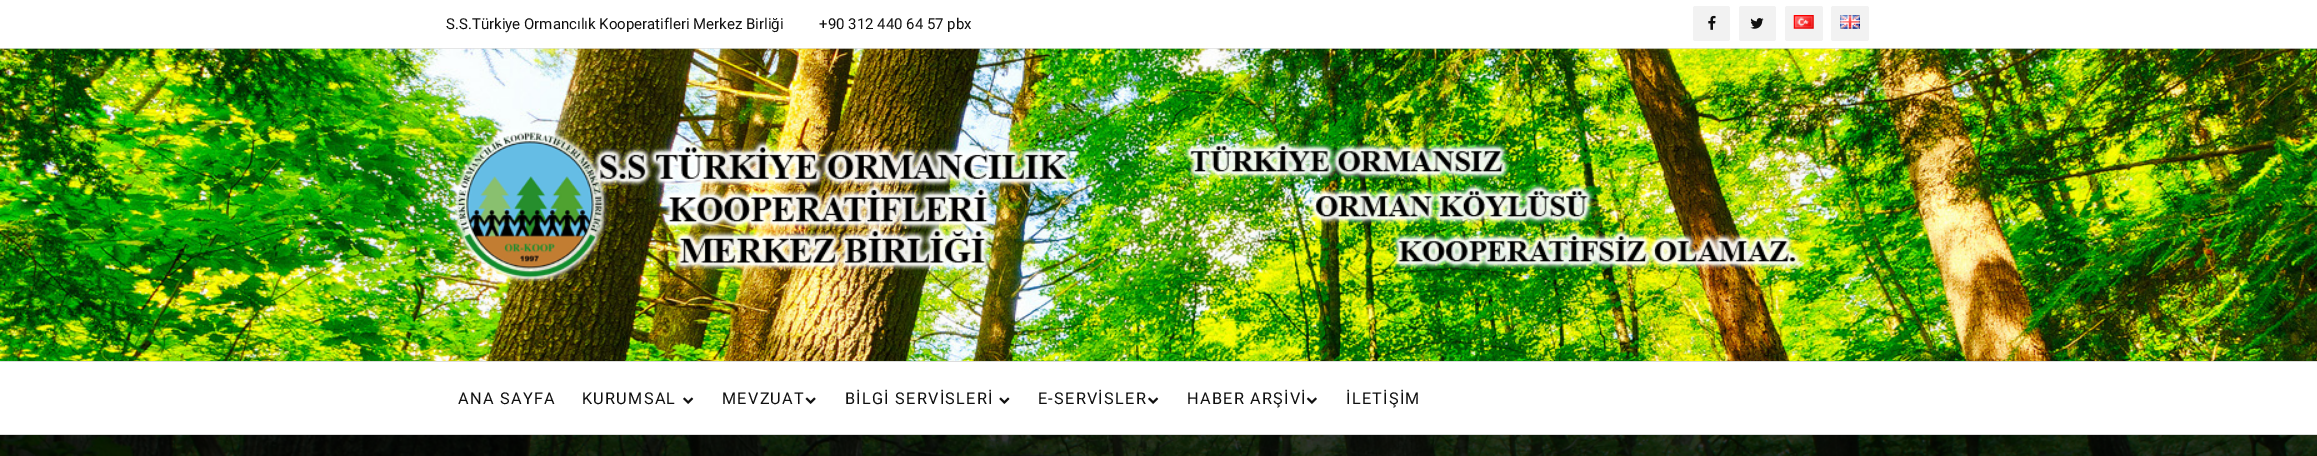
%!PS
<< /PageSize [2317 456] >> setpagedevice
/rgb { 3 { 255 div 3 1 roll } repeat setrgbcolor } def
/font { [ exch dup neg 0 0 3 -1 roll 0 0 ] selectfont } def
/text { moveto show } def
/roundrect { 5 dict begin { /r /h /w /y /x } { exch def } forall
  x r add y moveto x w add y 2 copy h add r arct x w add y h add x 1 index r arct
  x y h add x y r arct x y 2 copy exch w add exch r arct closepath end } def
/picture { 5 dict begin { /h /w /y /x /name } { exch def } forall
  gsave x y translate w h scale
  w h 8 [w 0 0 h 0 0] name (r) file false 3 colorimage grestore end } def
0 456 translate 1 -1 scale
4 setmiterlimit
255 255 255 rgb
0 0 2317 456 rectfill
221 221 221 rgb
0 48 2317 1 rectfill
242 242 242 rgb
1693 6 37 35 2.5 roundrect fill
(img_01.rgb) 1708 15 8 15 picture
1739 6 37 35 2.5 roundrect fill
(img_02.rgb) 1750 18 14 11 picture
1785 6 38 35 2.5 roundrect fill
(img_03.rgb) 1793 15 21 14 picture
1831 6 38 35 2.5 roundrect fill
(img_04.rgb) 1840 15 20 14 picture
(img_05.rgb) 0 48 2317 313 picture
(img_06.rgb) 452 131 620 151 picture
(img_07.rgb) 1184 139 618 130 picture
221 221 221 rgb
0 361 2317 1 rectfill
0 434 2317 1 rectfill
(img_08.rgb) 683 397 11 7 picture
(img_09.rgb) 805 397 11 7 picture
(img_10.rgb) 999 397 11 7 picture
(img_08.rgb) 1148 397 11 7 picture
(img_11.rgb) 1306 397 11 7 picture
(img_12.rgb) 0 435 2317 21 picture
/Roboto-Regular 15 font
16 16 16 rgb
(S.S.Türkiye Ormancılık Kooperatifleri Merkez Birliği) 446 29 text
(+90 312 440 64 57 pbx) 819 29 text
/Roboto-Regular 16.25 font
458 404 moveto 1.25 0 (ANA SAYFA) ashow
582 404 moveto 1.25 0 (KURUMSAL) ashow
722 404 moveto 1.25 0 (MEVZUAT) ashow
845 404 moveto 1.25 0 (BİLGİ SERVİSLERİ) ashow
1038 404 moveto 1.25 0 (E-SERVİSLER) ashow
1187 404 moveto 1.25 0 (HABER ARŞİVİ) ashow
1346 404 moveto 1.25 0 (İLETİŞİM) ashow
showpage
